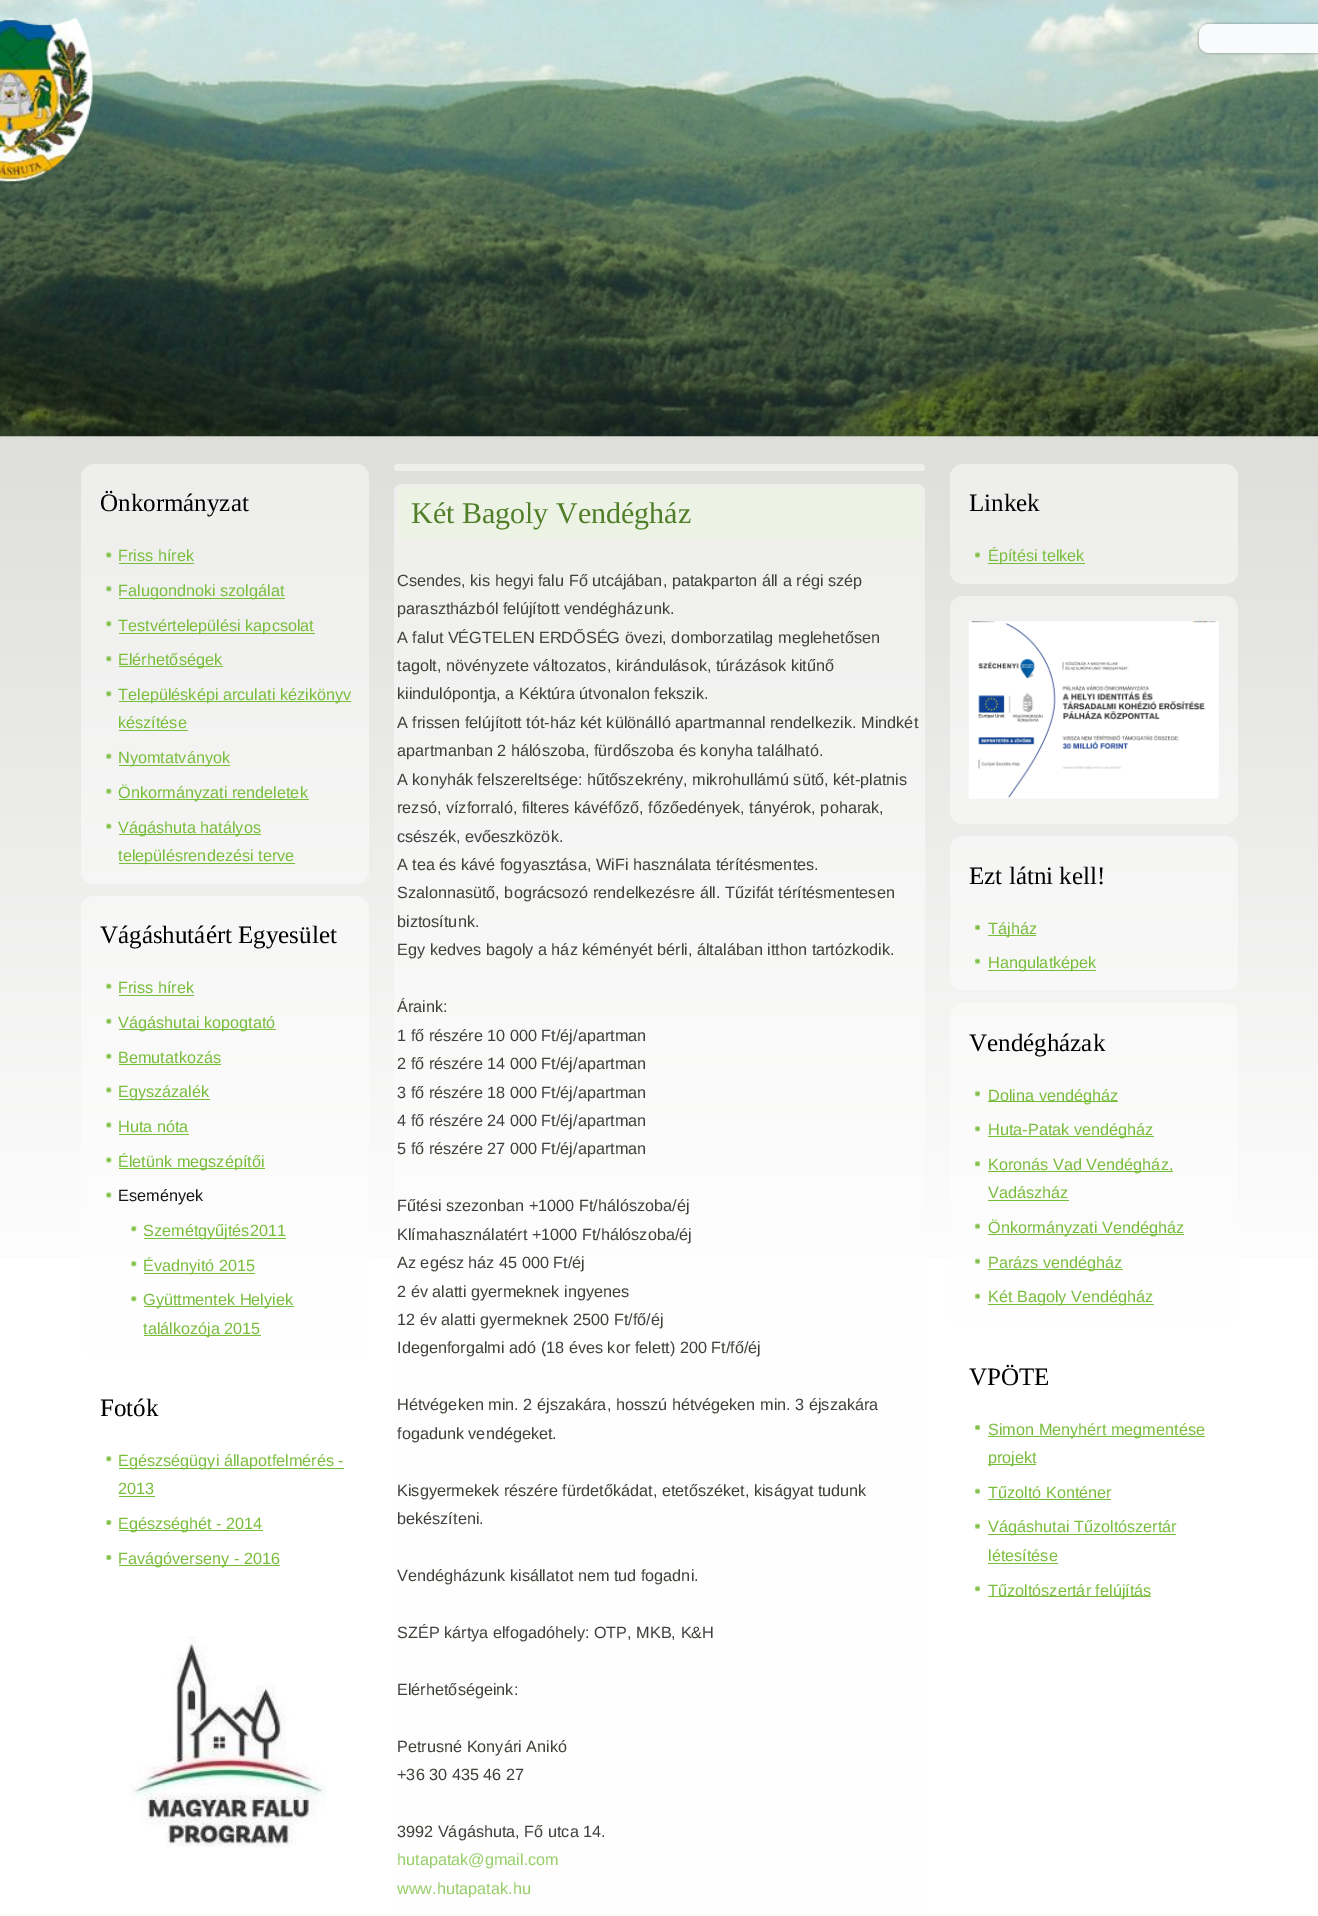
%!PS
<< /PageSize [1318 1916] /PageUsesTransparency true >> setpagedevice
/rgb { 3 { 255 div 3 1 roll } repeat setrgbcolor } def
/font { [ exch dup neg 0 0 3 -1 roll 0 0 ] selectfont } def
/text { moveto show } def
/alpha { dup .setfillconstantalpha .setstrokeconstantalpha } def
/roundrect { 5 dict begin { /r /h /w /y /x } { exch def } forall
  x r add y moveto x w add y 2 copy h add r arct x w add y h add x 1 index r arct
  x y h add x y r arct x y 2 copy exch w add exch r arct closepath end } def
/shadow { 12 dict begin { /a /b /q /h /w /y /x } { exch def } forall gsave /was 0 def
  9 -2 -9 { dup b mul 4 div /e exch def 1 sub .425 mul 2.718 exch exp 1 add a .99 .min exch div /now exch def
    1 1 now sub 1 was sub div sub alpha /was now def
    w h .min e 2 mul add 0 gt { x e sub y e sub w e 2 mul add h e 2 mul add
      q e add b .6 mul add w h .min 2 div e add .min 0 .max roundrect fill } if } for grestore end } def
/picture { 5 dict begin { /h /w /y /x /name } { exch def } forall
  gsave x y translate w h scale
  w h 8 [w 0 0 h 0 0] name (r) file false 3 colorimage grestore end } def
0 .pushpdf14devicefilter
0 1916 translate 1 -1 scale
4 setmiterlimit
255 255 255 rgb
0 0 1318 1916 rectfill
gsave 0 436 moveto 1318 0 rlineto 0 822 rlineto -1318 0 rlineto closepath clip newpath
<< /ShadingType 2 /ColorSpace /DeviceRGB /Coords [659 0 659 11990] /Extend [true true] /Function << /FunctionType 3 /Domain [0 1] /Functions [<< /FunctionType 2 /Domain [0 1] /C0 [0.804 0.812 0.788] /C1 [1 1 1] /N 1 >> << /FunctionType 2 /Domain [0 1] /C0 [1 1 1] /C1 [1 1 1] /N 1 >>] /Bounds [0.11] /Encode [0 1 0 1] >> >> shfill grestore
(img_01.rgb) 0 0 1318 437 picture
(img_02.rgb) 0 17 93 165 picture
0 0 0 rgb
1198 23 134 31 11 1 0.2 shadow
249 250 251 rgb
1209 24 moveto 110 0 rlineto 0 29 rlineto -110 0 rlineto -5.5 0 -10 -4.5 -10 -10 rcurveto 0 -9 rlineto 0 -5.5 4.5 -10 10 -10 rcurveto closepath fill
0.5 alpha
252 253 252 rgb
81 464 288 420 13 roundrect fill
1 alpha
(img_03.rgb) 106 552 6 6 picture
121 189 61 rgb
119 563 75 1 rectfill
(img_04.rgb) 106 586 6 6 picture
119 598 166 1 rectfill
(img_05.rgb) 106 621 6 6 picture
119 633 196 1 rectfill
(img_06.rgb) 106 656 6 6 picture
119 666 104 1 rectfill
(img_07.rgb) 106 691 6 6 picture
119 701 232 1 rectfill
119 730 69 1 rectfill
(img_08.rgb) 106 753 6 6 picture
119 765 111 1 rectfill
(img_09.rgb) 106 788 6 6 picture
119 799 190 1 rectfill
(img_10.rgb) 106 823 6 6 picture
119 834 142 1 rectfill
119 863 176 1 rectfill
0.5 alpha
252 253 252 rgb
81 896 288 460 13 roundrect fill
1 alpha
(img_11.rgb) 106 983 6 6 picture
121 189 61 rgb
119 995 75 1 rectfill
(img_12.rgb) 106 1018 6 6 picture
119 1029 157 1 rectfill
(img_13.rgb) 106 1053 6 6 picture
119 1064 102 1 rectfill
(img_14.rgb) 106 1087 6 6 picture
119 1099 91 1 rectfill
(img_15.rgb) 106 1122 6 6 picture
119 1134 70 1 rectfill
(img_16.rgb) 106 1157 6 6 picture
119 1168 146 1 rectfill
(img_17.rgb) 106 1192 6 6 picture
(img_18.rgb) 131 1226 6 6 picture
144 1238 142 1 rectfill
(img_19.rgb) 131 1261 6 6 picture
144 1273 111 1 rectfill
(img_20.rgb) 131 1296 6 6 picture
144 1306 150 1 rectfill
144 1335 117 1 rectfill
(img_21.rgb) 106 1456 6 6 picture
119 1468 225 1 rectfill
119 1496 36 1 rectfill
(img_22.rgb) 106 1520 6 5 picture
119 1530 144 1 rectfill
(img_22.rgb) 106 1555 6 5 picture
119 1565 161 1 rectfill
(img_23.rgb) 130 1636 196 211 picture
238 239 236 rgb
394 464 531 7 3.5 roundrect fill
0.5 alpha
252 253 252 rgb
394 484 531 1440 8 roundrect fill
1 alpha
236 243 229 rgb
398 488 523 51 rectfill
0.5 alpha
252 253 252 rgb
950 464 288 120 13 roundrect fill
1 alpha
(img_24.rgb) 975 552 5 6 picture
121 189 61 rgb
988 563 97 1 rectfill
0.5 alpha
252 253 252 rgb
950 596 288 228 13 roundrect fill
1 alpha
(img_25.rgb) 968 621 251 178 picture
0.5 alpha
950 836 288 154 13 roundrect fill
1 alpha
(img_26.rgb) 975 925 5 5 picture
121 189 61 rgb
988 935 48 1 rectfill
(img_27.rgb) 975 958 5 6 picture
988 970 108 1 rectfill
0.5 alpha
252 253 252 rgb
950 1003 288 322 13 roundrect fill
1 alpha
(img_28.rgb) 975 1091 5 6 picture
121 189 61 rgb
988 1101 130 1 rectfill
(img_29.rgb) 975 1126 5 6 picture
988 1136 166 1 rectfill
(img_30.rgb) 975 1161 5 6 picture
988 1171 185 1 rectfill
988 1200 81 1 rectfill
(img_31.rgb) 975 1223 5 6 picture
988 1234 196 1 rectfill
(img_32.rgb) 975 1258 5 6 picture
988 1269 135 1 rectfill
(img_33.rgb) 975 1293 5 6 picture
988 1304 166 1 rectfill
(img_34.rgb) 975 1425 5 5 picture
988 1436 217 1 rectfill
988 1464 48 1 rectfill
(img_35.rgb) 975 1488 5 6 picture
988 1499 123 1 rectfill
(img_35.rgb) 975 1523 5 6 picture
988 1534 188 1 rectfill
988 1563 70 1 rectfill
(img_36.rgb) 975 1586 5 6 picture
988 1596 163 1 rectfill
/LiberationSerif-Regular 25 font
0 0 0 rgb
(Önkormányzat) 100 511 text
/LiberationSans-Regular 16.25 font
121 189 61 rgb
(Friss hírek) 118 561 text
(Falugondnoki szolgálat) 118 596 text
(Testvértelepülési kapcsolat) 118 631 text
(Elérhetőségek) 118 665 text
(Településképi arculati kézikönyv) 118 700 text
(készítése) 118 728 text
(Nyomtatványok) 118 763 text
(Önkormányzati rendeletek) 118 798 text
(Vágáshuta hatályos) 118 833 text
(településrendezési terve) 118 861 text
/LiberationSerif-Regular 25 font
0 0 0 rgb
(Vágáshutáért Egyesület) 100 943 text
/LiberationSans-Regular 16.25 font
121 189 61 rgb
(Friss hírek) 118 993 text
(Vágáshutai kopogtató) 118 1028 text
(Bemutatkozás) 118 1063 text
(Egyszázalék) 118 1097 text
(Huta nóta) 118 1132 text
(Életünk megszépítői) 118 1167 text
21 21 19 rgb
(Események) 118 1201 text
121 189 61 rgb
(Szemétgyűjtés2011) 143 1236 text
(Évadnyitó 2015) 143 1271 text
(Gyüttmentek Helyiek) 143 1305 text
(találkozója 2015) 143 1334 text
/LiberationSerif-Regular 25 font
0 0 0 rgb
(Fotók) 100 1416 text
/LiberationSans-Regular 16.25 font
121 189 61 rgb
(Egészségügyi állapotfelmérés -) 118 1466 text
(2013) 118 1494 text
(Egészséghét - 2014) 118 1529 text
(Favágóverseny - 2016) 118 1564 text
/LiberationSerif-Regular 30 font
81 127 41 rgb
(Két Bagoly Vendégház) 411 523 text
/LiberationSans-Regular 16.25 font
62 64 58 rgb
(Csendes, kis hegyi falu Fő utcájában, patakparton áll a régi szép) 397 586 text
(parasztházból felújított vendégházunk.) 397 614 text
(A falut VÉGTELEN ERDŐSÉG övezi, domborzatilag meglehetősen) 397 643 text
(tagolt, növényzete változatos, kirándulások, túrázások kitűnő) 397 671 text
(kiindulópontja, a Kéktúra útvonalon fekszik.) 397 699 text
(A frissen felújított tót-ház két különálló apartmannal rendelkezik. Mindkét) 397 728 text
(apartmanban 2 hálószoba, fürdőszoba és konyha található.) 397 756 text
(A konyhák felszereltsége: hűtőszekrény, mikrohullámú sütő, két-platnis) 397 785 text
(rezsó, vízforraló, filteres kávéfőző, főzőedények, tányérok, poharak,) 397 813 text
(csészék, evőeszközök.) 397 842 text
(A tea és kávé fogyasztása, WiFi használata térítésmentes.) 397 870 text
(Szalonnasütő, bográcsozó rendelkezésre áll. Tűzifát térítésmentesen) 397 898 text
(biztosítunk.) 397 927 text
(Egy kedves bagoly a ház kéményét bérli, általában itthon tartózkodik.) 397 955 text
(Áraink:) 397 1012 text
(1 fő részére 10 000 Ft/éj/apartman) 397 1041 text
(2 fő részére 14 000 Ft/éj/apartman) 397 1069 text
(3 fő részére 18 000 Ft/éj/apartman) 397 1098 text
(4 fő részére 24 000 Ft/éj/apartman) 397 1126 text
(5 fő részére 27 000 Ft/éj/apartman) 397 1154 text
(Fűtési szezonban +1000 Ft/hálószoba/éj) 397 1211 text
(Klímahasználatért +1000 Ft/hálószoba/éj) 397 1240 text
(Az egész ház 45 000 Ft/éj) 397 1268 text
(2 év alatti gyermeknek ingyenes) 397 1297 text
(12 év alatti gyermeknek 2500 Ft/fő/éj) 397 1325 text
(Idegenforgalmi adó \(18 éves kor felett\) 200 Ft/fő/éj) 397 1353 text
(Hétvégeken min. 2 éjszakára, hosszú hétvégeken min. 3 éjszakára) 397 1410 text
(fogadunk vendégeket.) 397 1439 text
(Kisgyermekek részére fürdetőkádat, etetőszéket, kiságyat tudunk) 397 1496 text
(bekészíteni.) 397 1524 text
(Vendégházunk kisállatot nem tud fogadni.) 397 1581 text
(SZÉP kártya elfogadóhely: OTP, MKB, K&H) 397 1638 text
(Elérhetőségeink:) 397 1695 text
(Petrusné Konyári Anikó) 397 1752 text
(+36 30 435 46 27) 397 1780 text
(3992 Vágáshuta, Fő utca 14.) 397 1837 text
152 206 105 rgb
(hutapatak@gmail.com) 397 1865 text
(www.hutapatak.hu) 397 1894 text
/LiberationSerif-Regular 25 font
0 0 0 rgb
(Linkek) 969 511 text
/LiberationSans-Regular 16.25 font
121 189 61 rgb
(Építési telkek) 988 561 text
/LiberationSerif-Regular 25 font
0 0 0 rgb
(Ezt látni kell!) 969 884 text
/LiberationSans-Regular 16.25 font
121 189 61 rgb
(Tájház) 988 934 text
(Hangulatképek) 988 968 text
/LiberationSerif-Regular 25 font
0 0 0 rgb
(Vendégházak) 969 1051 text
/LiberationSans-Regular 16.25 font
121 189 61 rgb
(Dolina vendégház) 988 1101 text
(Huta-Patak vendégház) 988 1135 text
(Koronás Vad Vendégház,) 988 1170 text
(Vadászház) 988 1198 text
(Önkormányzati Vendégház) 988 1233 text
(Parázs vendégház) 988 1268 text
(Két Bagoly Vendégház) 988 1302 text
/LiberationSerif-Regular 25 font
0 0 0 rgb
(VPÖTE) 969 1385 text
/LiberationSans-Regular 16.25 font
121 189 61 rgb
(Simon Menyhért megmentése) 988 1435 text
(projekt) 988 1463 text
(Tűzoltó Konténer) 988 1498 text
(Vágáshutai Tűzoltószertár) 988 1532 text
(létesítése) 988 1561 text
(Tűzoltószertár felújítás) 988 1596 text
.poppdf14devicefilter showpage
